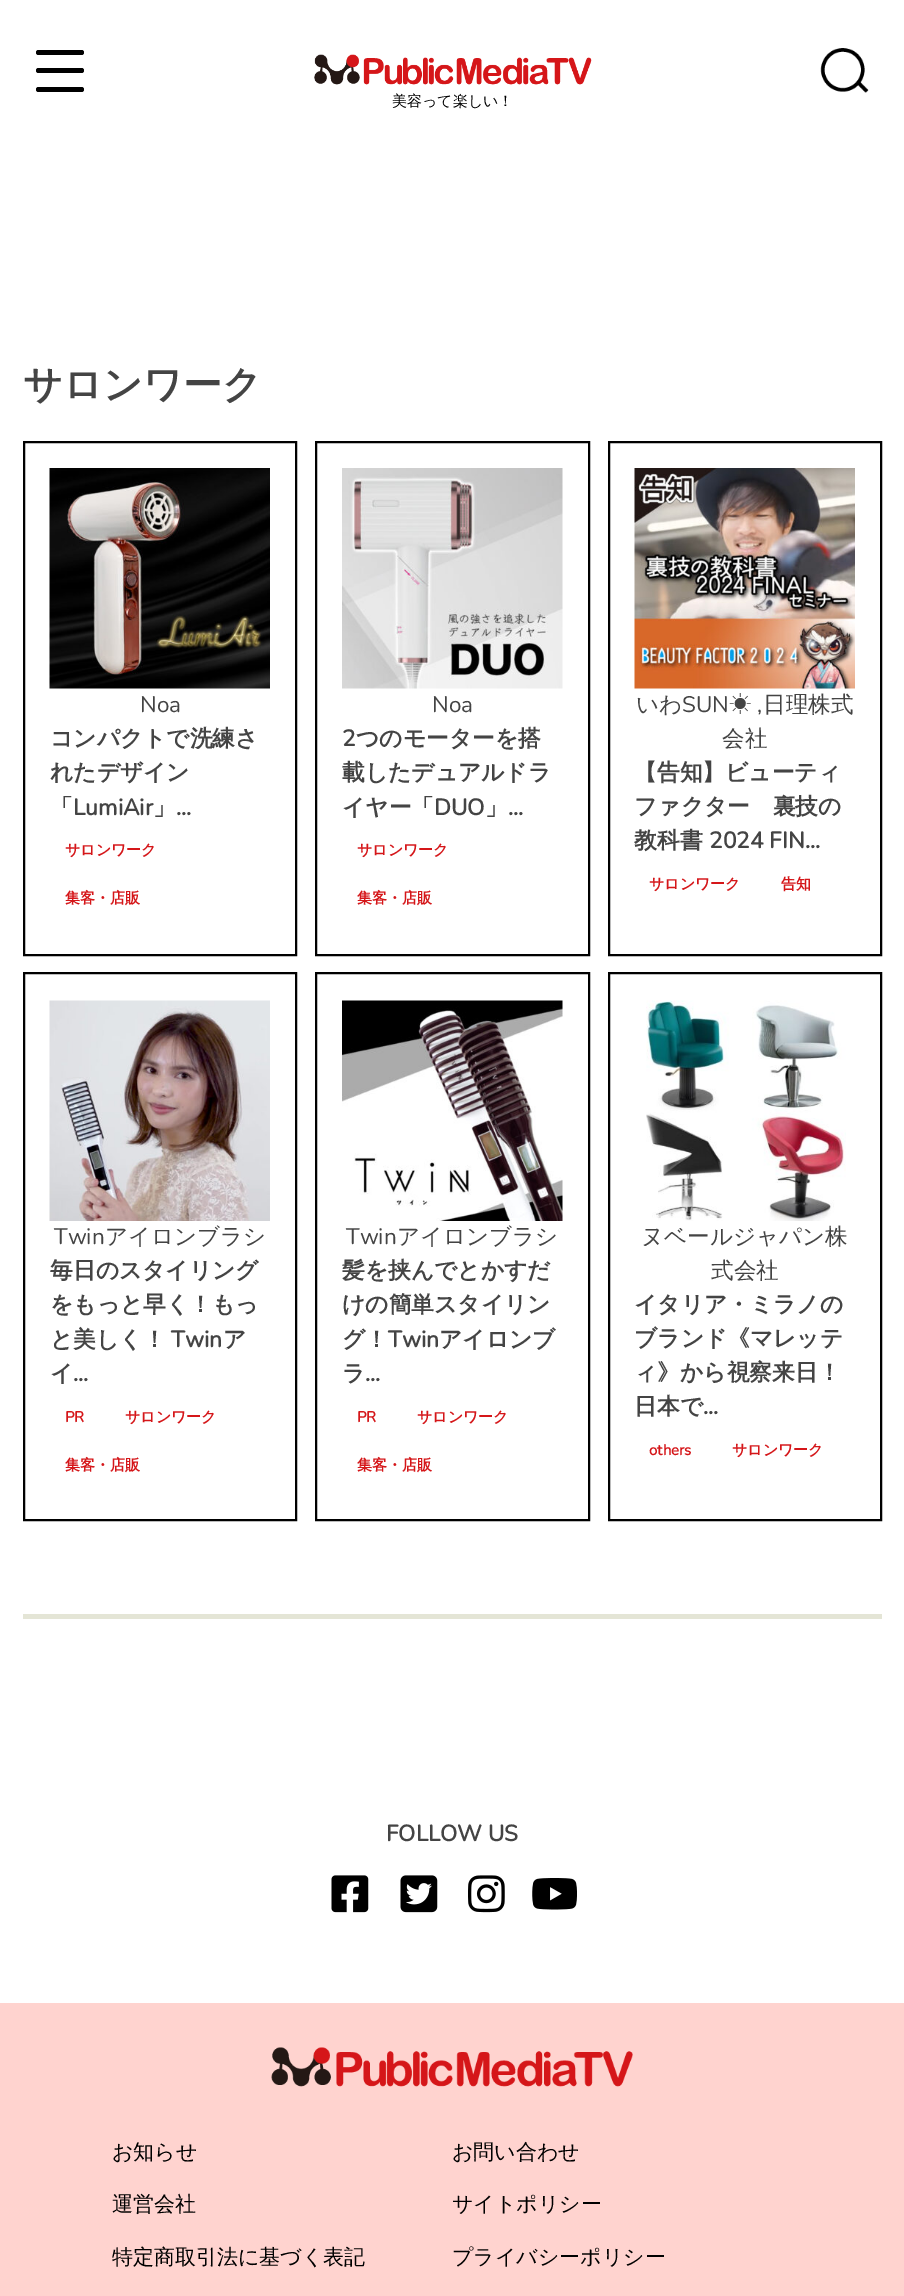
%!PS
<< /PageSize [904 2296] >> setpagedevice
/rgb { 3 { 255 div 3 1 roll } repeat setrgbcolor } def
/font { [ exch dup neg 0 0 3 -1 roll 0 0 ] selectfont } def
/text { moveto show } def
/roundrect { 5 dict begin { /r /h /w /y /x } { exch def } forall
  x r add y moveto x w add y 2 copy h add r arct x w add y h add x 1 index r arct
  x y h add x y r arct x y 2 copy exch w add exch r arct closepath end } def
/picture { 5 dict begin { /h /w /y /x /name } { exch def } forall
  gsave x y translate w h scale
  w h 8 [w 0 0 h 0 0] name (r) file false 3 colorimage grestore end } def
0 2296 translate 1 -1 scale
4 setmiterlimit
255 255 255 rgb
0 0 904 2296 rectfill
0 0 0 rgb
36 50 48 5 2.5 roundrect fill
36 68 48 5 2.5 roundrect fill
36 87 48 5 2.5 roundrect fill
(img_01.rgb) 820 48 49 45 picture
(img_02.rgb) 314 54 278 31 picture
2 setlinewidth
24 442 272 513 rectstroke
(img_03.rgb) 49 468 221 221 picture
316 442 273 513 rectstroke
(img_04.rgb) 342 468 221 221 picture
609 442 272 513 rectstroke
(img_05.rgb) 634 468 221 221 picture
24 973 272 547 rectstroke
(img_06.rgb) 49 1000 221 221 picture
316 973 273 547 rectstroke
(img_07.rgb) 342 1000 221 221 picture
609 973 272 547 rectstroke
(img_08.rgb) 646 1000 200 221 picture
228 229 214 rgb
23 1614 859 5 rectfill
(img_09.rgb) 331 1875 38 38 picture
(img_10.rgb) 400 1875 38 38 picture
(img_11.rgb) 468 1875 37 38 picture
(img_12.rgb) 532 1878 45 32 picture
255 211 207 rgb
0 2003 904 293 rectfill
(img_13.rgb) 271 2047 362 40 picture
/WenQuanYiZenHei-Medium 15 font
0 0 0 rgb
(美容って楽しい！) 392 106 text
/WenQuanYiZenHei-Bold 39 font
68 68 68 rgb
(サロンワーク) 23 398 text
/Nunito-ExtraLight 22.5 font
(Noa) 140 712 text
/WenQuanYiZenHei-Bold 22.75 font
(コンパクトで洗練さ) 50 746 text
(れたデザイン) 50 780 text
(「) 50 815 text
/Nunito-Bold 22.75 font
(LumiAir) 73 815 text
/WenQuanYiZenHei-Bold 22.75 font
(」) 153 815 text
/Nunito-Bold 22.75 font
(...) 176 815 text
/WenQuanYiZenHei-Bold 15 font
213 22 25 rgb
(サロンワーク) 65 855 text
(集客・店販) 65 903 text
/Nunito-ExtraLight 22.5 font
68 68 68 rgb
(Noa) 432 712 text
/Nunito-Bold 22.75 font
(2) 342 746 text
/WenQuanYiZenHei-Bold 22.75 font
(つのモーターを搭) 356 746 text
(載したデュアルドラ) 342 780 text
(イヤー「) 342 815 text
/Nunito-Bold 22.75 font
(DUO) 434 815 text
/WenQuanYiZenHei-Bold 22.75 font
(」) 485 815 text
/Nunito-Bold 22.75 font
(...) 508 815 text
/WenQuanYiZenHei-Bold 15 font
213 22 25 rgb
(サロンワーク) 357 855 text
(集客・店販) 357 903 text
/WenQuanYiZenHei-Medium 22.5 font
68 68 68 rgb
(いわ) 636 712 text
/Nunito-ExtraLight 22.5 font
(SUN) 682 712 text
/IPAPGothic-Regular 22.5 font
(☀) 729 712 text
/Nunito-ExtraLight 22.5 font
(,) 757 712 text
/WenQuanYiZenHei-Medium 22.5 font
(日理株式) 763 712 text
(会社) 722 746 text
/WenQuanYiZenHei-Bold 22.75 font
(【告知】ビューティ) 634 780 text
(ファクター　裏技の) 634 814 text
(教科書) 634 848 text
/Nunito-Bold 22.75 font
(2024 FIN...) 709 848 text
/WenQuanYiZenHei-Bold 15 font
213 22 25 rgb
(サロンワーク) 649 889 text
(告知) 781 889 text
/Nunito-ExtraLight 22.5 font
68 68 68 rgb
(Twin) 54 1244 text
/WenQuanYiZenHei-Medium 22.5 font
(アイロンブラシ) 105 1244 text
/WenQuanYiZenHei-Bold 22.75 font
(毎日のスタイリング) 50 1278 text
(をもっと早く！もっ) 50 1312 text
(と美しく！) 50 1347 text
/Nunito-Bold 22.75 font
(Twin) 171 1347 text
/WenQuanYiZenHei-Bold 22.75 font
(ア) 223 1347 text
(イ) 50 1381 text
/Nunito-Bold 22.75 font
(...) 73 1381 text
/Nunito-Bold 15 font
213 22 25 rgb
(PR) 65 1422 text
/WenQuanYiZenHei-Bold 15 font
(サロンワーク) 125 1422 text
(集客・店販) 65 1470 text
/Nunito-ExtraLight 22.5 font
68 68 68 rgb
(Twin) 346 1244 text
/WenQuanYiZenHei-Medium 22.5 font
(アイロンブラシ) 397 1244 text
/WenQuanYiZenHei-Bold 22.75 font
(髪を挟んでとかすだ) 342 1278 text
(けの簡単スタイリン) 342 1312 text
(グ！) 342 1347 text
/Nunito-Bold 22.75 font
(Twin) 388 1347 text
/WenQuanYiZenHei-Bold 22.75 font
(アイロンブ) 439 1347 text
(ラ) 342 1381 text
/Nunito-Bold 22.75 font
(...) 365 1381 text
/Nunito-Bold 15 font
213 22 25 rgb
(PR) 357 1422 text
/WenQuanYiZenHei-Bold 15 font
(サロンワーク) 417 1422 text
(集客・店販) 357 1470 text
/WenQuanYiZenHei-Medium 22.5 font
68 68 68 rgb
(ヌベールジャパン株) 641 1244 text
(式会社) 711 1278 text
/WenQuanYiZenHei-Bold 22.75 font
(イタリア・ミラノの) 634 1312 text
(ブランド《マレッテ) 634 1346 text
(ィ》から視察来日！) 634 1380 text
(日本で) 634 1414 text
/Nunito-Bold 22.75 font
(...) 703 1414 text
/Nunito-Bold 15 font
213 22 25 rgb
(others) 649 1455 text
/WenQuanYiZenHei-Bold 15 font
(サロンワーク) 732 1455 text
/Nunito-Bold 22.5 font
68 68 68 rgb
(FOLLOW US) 386 1841 text
/WenQuanYiZenHei-Medium 21 font
0 0 0 rgb
(お知らせ) 112 2159 text
(お問い合わせ) 452 2159 text
(運営会社) 112 2211 text
(サイトポリシー) 452 2211 text
(特定商取引法に基づく表記) 112 2264 text
(プライバシーポリシー) 452 2264 text
showpage
